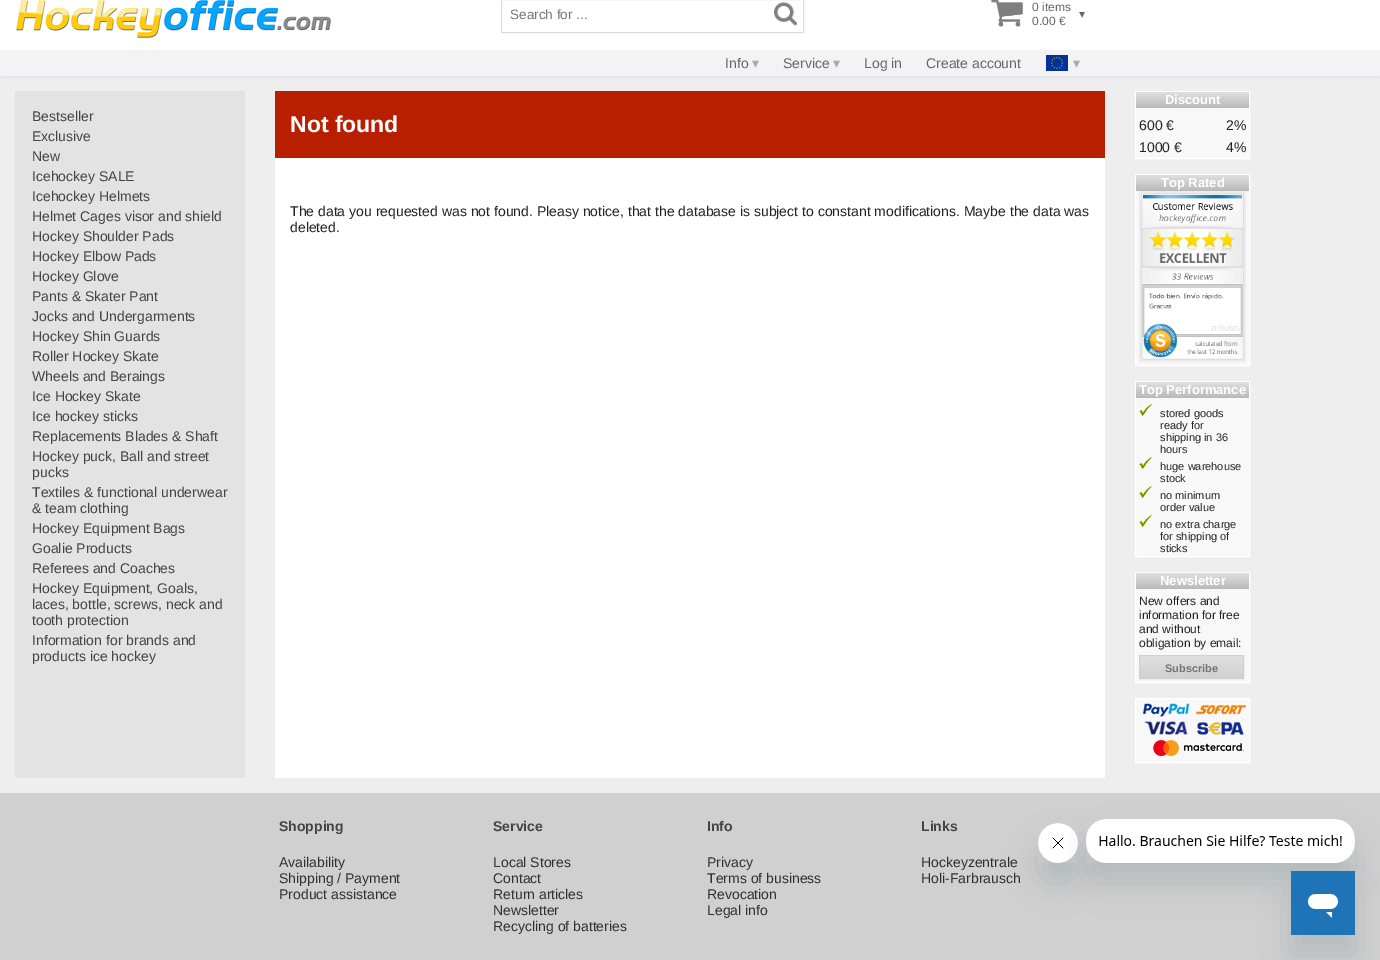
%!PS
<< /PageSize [1380 960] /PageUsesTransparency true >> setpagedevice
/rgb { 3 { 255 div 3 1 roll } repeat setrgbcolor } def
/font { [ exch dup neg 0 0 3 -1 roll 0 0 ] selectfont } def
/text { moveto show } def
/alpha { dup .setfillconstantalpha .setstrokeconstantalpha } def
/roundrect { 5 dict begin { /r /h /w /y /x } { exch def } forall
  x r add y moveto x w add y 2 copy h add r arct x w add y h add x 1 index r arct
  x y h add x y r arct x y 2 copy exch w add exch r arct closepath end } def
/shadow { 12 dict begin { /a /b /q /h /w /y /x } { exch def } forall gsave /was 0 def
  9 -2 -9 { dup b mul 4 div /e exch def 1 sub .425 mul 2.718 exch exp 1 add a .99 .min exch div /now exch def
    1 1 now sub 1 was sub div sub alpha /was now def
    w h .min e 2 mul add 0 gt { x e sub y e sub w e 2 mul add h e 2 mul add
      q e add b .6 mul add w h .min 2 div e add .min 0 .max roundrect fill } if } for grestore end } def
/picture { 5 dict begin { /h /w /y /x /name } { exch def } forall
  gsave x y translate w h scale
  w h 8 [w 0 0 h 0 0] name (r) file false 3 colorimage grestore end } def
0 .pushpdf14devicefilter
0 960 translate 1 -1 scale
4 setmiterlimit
238 238 238 rgb
0 0 1380 960 rectfill
224 224 224 rgb
0 -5 1380 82 0 1.5 1 shadow
255 255 255 rgb
0 0 1380 50 rectfill
(img_01.rgb) 16 0 315 38 picture
221 221 221 rgb
501.5 -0.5 302 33 rectstroke
(img_02.rgb) 774 2 23 24 picture
(img_03.rgb) 991 0 32 27 picture
243 243 245 rgb
0 50 1380 26 rectfill
(img_04.rgb) 1046 55 22 16 picture
227 227 227 rgb
15 91 230 687 rectfill
255 255 255 rgb
275 158 830 620 rectfill
184 31 0 rgb
275 91 830 67 rectfill
248 248 248 rgb
1136 108 113 50 rectfill
255 255 255 rgb
1135.5 91.5 114 67 rectstroke
gsave 1136 92 moveto 113 0 rlineto 0 16 rlineto -113 0 rlineto closepath clip newpath
<< /ShadingType 2 /ColorSpace /DeviceRGB /Coords [1193 92 1193 108] /Extend [true true] /Function << /FunctionType 2 /Domain [0 1] /C0 [0.878 0.878 0.878] /C1 [0.725 0.725 0.725] /N 1 >> >> shfill grestore
248 248 248 rgb
1136 191 113 174 rectfill
255 255 255 rgb
1135.5 174.5 114 191 rectstroke
gsave 1136 175 moveto 113 0 rlineto 0 16 rlineto -113 0 rlineto closepath clip newpath
<< /ShadingType 2 /ColorSpace /DeviceRGB /Coords [1193 175 1193 191] /Extend [true true] /Function << /FunctionType 2 /Domain [0 1] /C0 [0.878 0.878 0.878] /C1 [0.725 0.725 0.725] /N 1 >> >> shfill grestore
(img_05.rgb) 1139 191 107 171 picture
248 248 248 rgb
1136 398 113 158 rectfill
255 255 255 rgb
1135.5 381.5 114 175 rectstroke
gsave 1136 382 moveto 113 0 rlineto 0 16 rlineto -113 0 rlineto closepath clip newpath
<< /ShadingType 2 /ColorSpace /DeviceRGB /Coords [1193 382 1193 398] /Extend [true true] /Function << /FunctionType 2 /Domain [0 1] /C0 [0.878 0.878 0.878] /C1 [0.725 0.725 0.725] /N 1 >> >> shfill grestore
(img_06.rgb) 1139 404 13 12 picture
(img_06.rgb) 1139 457 13 12 picture
(img_06.rgb) 1139 486 13 12 picture
(img_06.rgb) 1139 515 13 12 picture
248 248 248 rgb
1136 589 113 93 rectfill
255 255 255 rgb
1135.5 572.5 114 110 rectstroke
gsave 1136 573 moveto 113 0 rlineto 0 16 rlineto -113 0 rlineto closepath clip newpath
<< /ShadingType 2 /ColorSpace /DeviceRGB /Coords [1193 573 1193 589] /Extend [true true] /Function << /FunctionType 2 /Domain [0 1] /C0 [0.878 0.878 0.878] /C1 [0.725 0.725 0.725] /N 1 >> >> shfill grestore
gsave 1140 656 moveto 103 0 rlineto 0 22 rlineto -103 0 rlineto closepath clip newpath
<< /ShadingType 2 /ColorSpace /DeviceRGB /Coords [1192 656 1192 678] /Extend [true true] /Function << /FunctionType 2 /Domain [0 1] /C0 [0.878 0.878 0.878] /C1 [0.816 0.816 0.816] /N 1 >> >> shfill grestore
208 208 208 rgb
1139.5 655.5 104 23 rectstroke
248 248 248 rgb
1135.5 698.5 moveto 114 0 rlineto 0 64 rlineto -114 0 rlineto closepath gsave fill grestore
255 255 255 rgb
stroke
(img_07.rgb) 1142 703 104 53 picture
208 208 208 rgb
0 793 1380 167 rectfill
23 73 77 rgb
1038 843 40 40 20 15 0.15 shadow
(img_09.rgb) 1038 823 40 40 picture
1086 839 269 44 20 15 0.15 shadow
(img_08.rgb) 1086 819 269 44 picture
1291 891 64 64 0 15 0.15 shadow
(img_10.rgb) 1291 871 64 64 picture
/LiberationSans-Regular 13.5 font
117 117 117 rgb
(Search for ...) 510 19 text
/LiberationSans-Regular 12 font
102 102 102 rgb
(0 items) 1032 11 text
(0.00 €) 1032 25 text
/DejaVuSans-Regular 12 font
(▾) 1079 18 text
/LiberationSans-Regular 14 font
(Info) 725 68 text
/DejaVuSans-Regular 14 font
170 170 170 rgb
(▾) 752 68 text
/LiberationSans-Regular 14 font
102 102 102 rgb
(Service) 783 68 text
/DejaVuSans-Regular 14 font
170 170 170 rgb
(▾) 833 68 text
/LiberationSans-Regular 14 font
102 102 102 rgb
(Log in) 864 68 text
(Create account) 926 68 text
/DejaVuSans-Regular 14 font
170 170 170 rgb
(▾) 1073 68 text
/LiberationSans-Regular 14 font
68 68 68 rgb
(Bestseller) 32 121 text
(Exclusive) 32 141 text
(New) 32 161 text
(Icehockey SALE) 32 181 text
(Icehockey Helmets) 32 201 text
(Helmet Cages visor and shield) 32 221 text
(Hockey Shoulder Pads) 32 241 text
(Hockey Elbow Pads) 32 261 text
(Hockey Glove) 32 281 text
(Pants & Skater Pant) 32 301 text
(Jocks and Undergarments) 32 321 text
(Hockey Shin Guards) 32 341 text
(Roller Hockey Skate) 32 361 text
(Wheels and Beraings) 32 381 text
(Ice Hockey Skate) 32 401 text
(Ice hockey sticks) 32 421 text
(Replacements Blades & Shaft) 32 441 text
(Hockey puck, Ball and street) 32 461 text
(pucks) 32 477 text
(Textiles & functional underwear) 32 497 text
(& team clothing) 32 513 text
(Hockey Equipment Bags) 32 533 text
(Goalie Products) 32 553 text
(Referees and Coaches) 32 573 text
(Hockey Equipment, Goals,) 32 593 text
(laces, bottle, screws, neck and) 32 609 text
(tooth protection) 32 625 text
(Information for brands and) 32 645 text
(products ice hockey) 32 661 text
/LiberationSans-Bold 23 font
255 255 255 rgb
(Not found) 290 132 text
/LiberationSans-Regular 14 font
34 34 34 rgb
(The data you requested was not found. Pleasy notice, that the database is subject to constant modifications. Maybe the data was) 290 216 text
(deleted.) 290 232 text
/LiberationSans-Bold 13 font
255 255 255 rgb
(Discount) 1165 104 text
/LiberationSans-Regular 14 font
34 34 34 rgb
(600 €) 1139 130 text
(2%) 1226 130 text
(1000 €) 1139 152 text
(4%) 1226 152 text
/LiberationSans-Bold 13 font
255 255 255 rgb
(Top Rated) 1161 187 text
(Top Performance) 1139 394 text
/LiberationSans-Regular 11 font
34 34 34 rgb
(stored goods) 1160 417 text
(ready for) 1160 429 text
(shipping in 36) 1160 441 text
(hours) 1160 453 text
(huge warehouse) 1160 470 text
(stock) 1160 482 text
(no minimum) 1160 499 text
(order value) 1160 511 text
(no extra charge) 1160 528 text
(for shipping of) 1160 540 text
(sticks) 1160 552 text
/LiberationSans-Bold 13 font
255 255 255 rgb
(Newsletter) 1160 585 text
/LiberationSans-Regular 12 font
34 34 34 rgb
(New offers and) 1139 605 text
(information for free) 1139 619 text
(and without) 1139 633 text
(obligation by email:) 1139 647 text
/LiberationSans-Bold 11 font
117 117 117 rgb
(Subscribe) 1165 672 text
/LiberationSans-Bold 14 font
68 68 68 rgb
(Shopping) 279 831 text
/LiberationSans-Regular 14 font
48 48 48 rgb
(Availability) 279 867 text
(Shipping / Payment) 279 883 text
(Product assistance) 279 899 text
/LiberationSans-Bold 14 font
68 68 68 rgb
(Service) 493 831 text
/LiberationSans-Regular 14 font
48 48 48 rgb
(Local Stores) 493 867 text
(Contact) 493 883 text
(Return articles) 493 899 text
(Newsletter) 493 915 text
(Recycling of batteries) 493 931 text
/LiberationSans-Bold 14 font
68 68 68 rgb
(Info) 707 831 text
/LiberationSans-Regular 14 font
48 48 48 rgb
(Privacy) 707 867 text
(Terms of business) 707 883 text
(Revocation) 707 899 text
(Legal info) 707 915 text
/LiberationSans-Bold 14 font
68 68 68 rgb
(Links) 921 831 text
/LiberationSans-Regular 14 font
48 48 48 rgb
(Hockeyzentrale) 921 867 text
(Holi-Farbrausch) 921 883 text
.poppdf14devicefilter showpage
